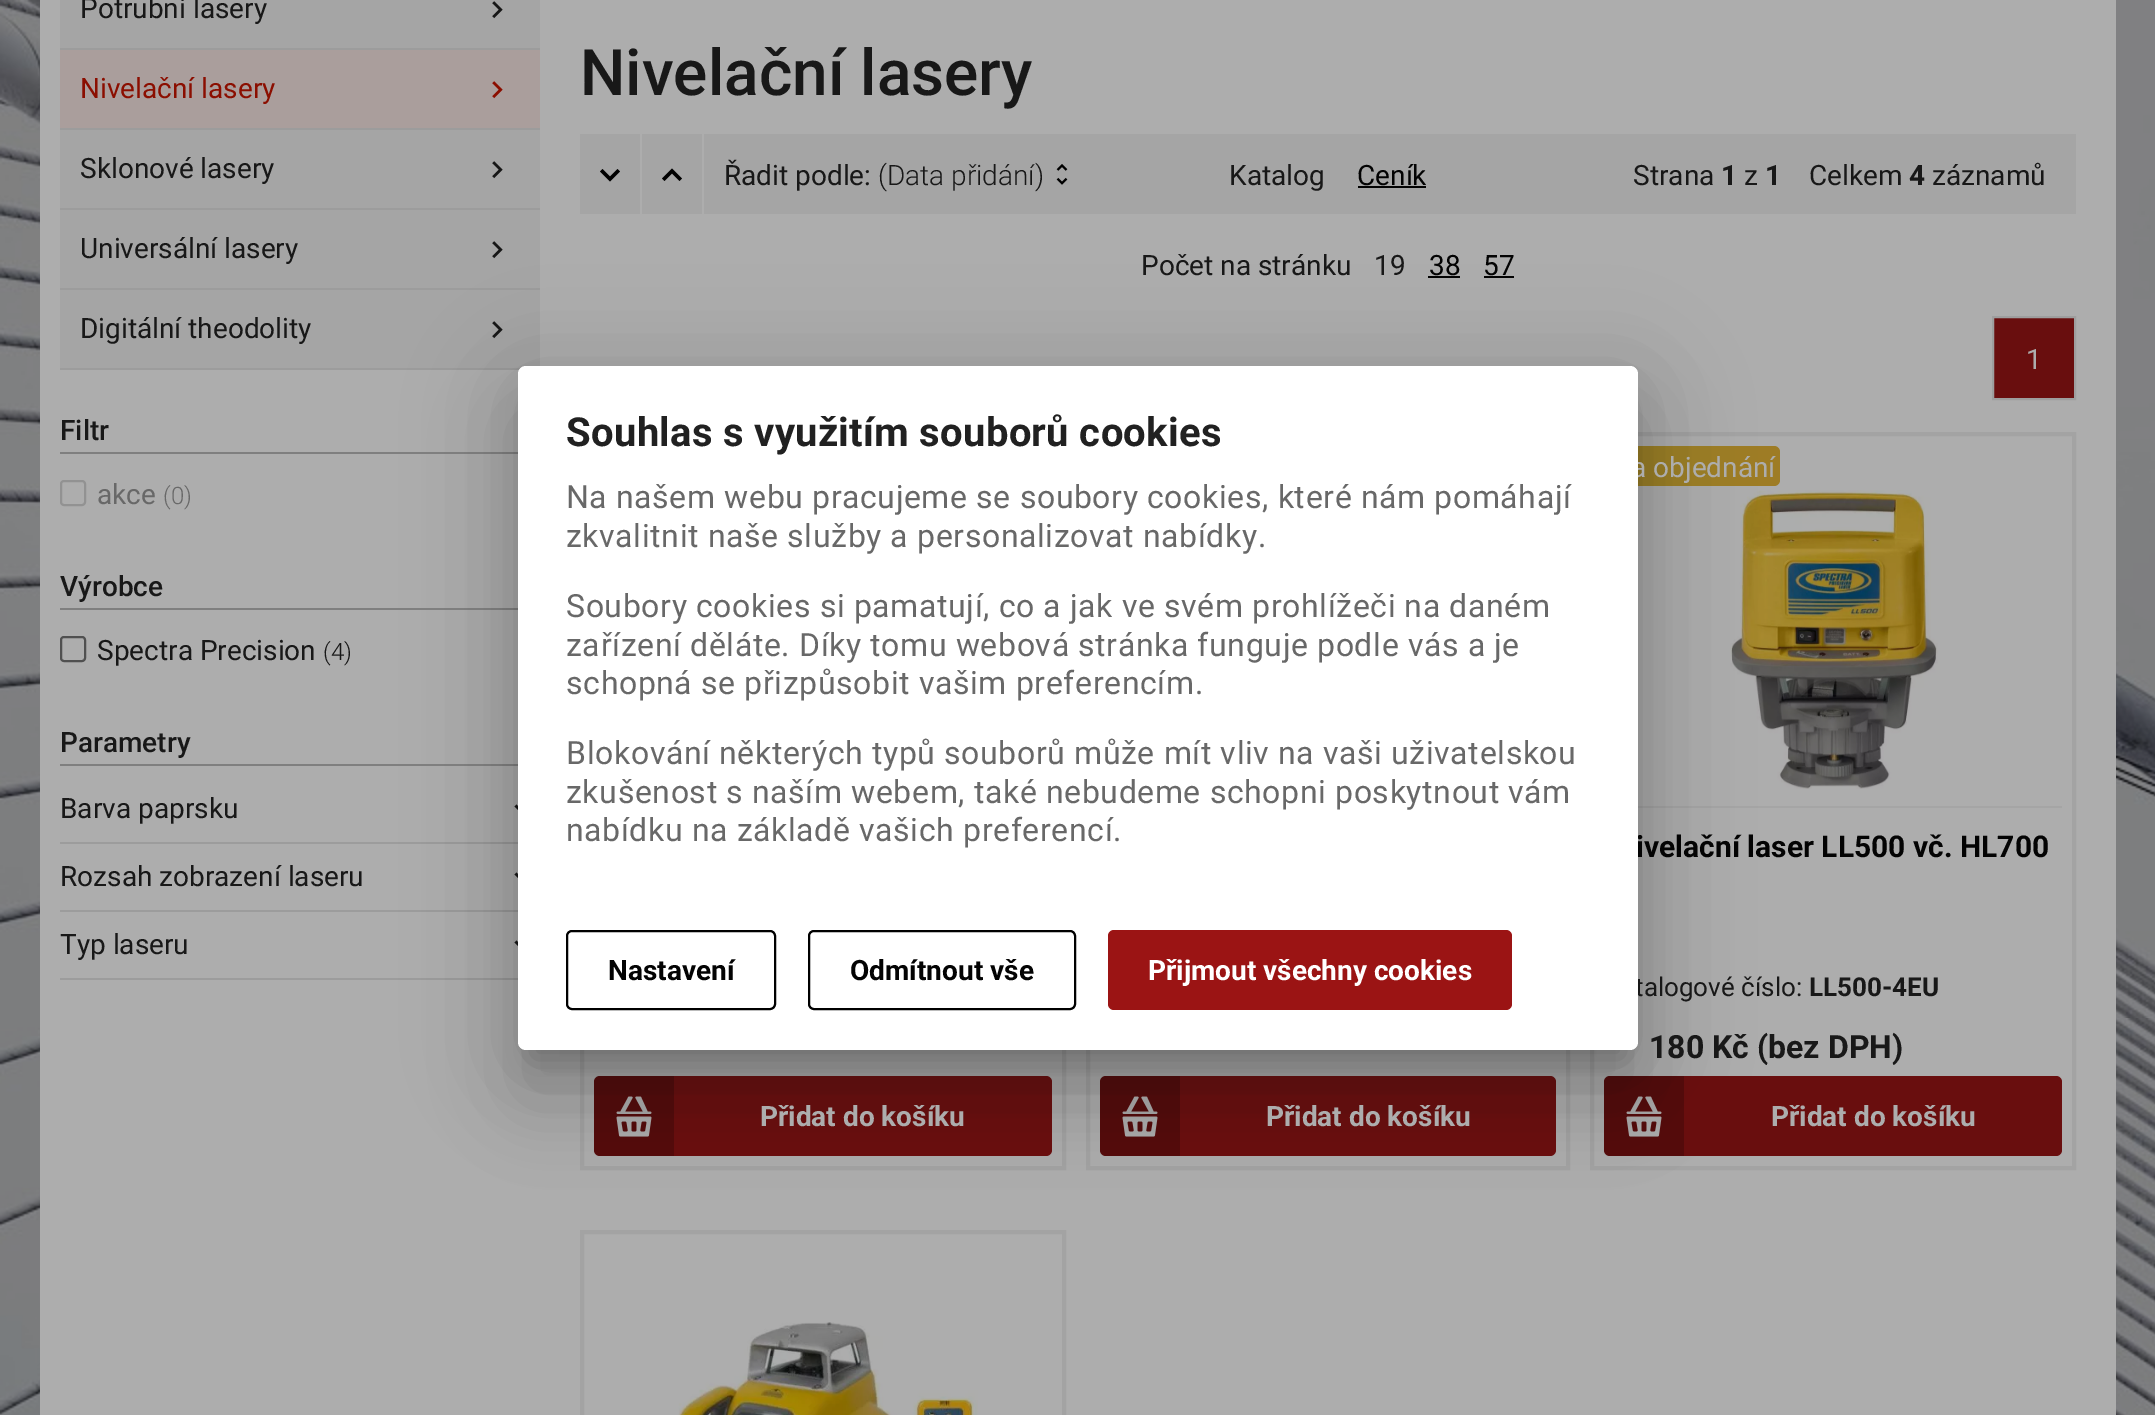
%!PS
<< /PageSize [2155 1415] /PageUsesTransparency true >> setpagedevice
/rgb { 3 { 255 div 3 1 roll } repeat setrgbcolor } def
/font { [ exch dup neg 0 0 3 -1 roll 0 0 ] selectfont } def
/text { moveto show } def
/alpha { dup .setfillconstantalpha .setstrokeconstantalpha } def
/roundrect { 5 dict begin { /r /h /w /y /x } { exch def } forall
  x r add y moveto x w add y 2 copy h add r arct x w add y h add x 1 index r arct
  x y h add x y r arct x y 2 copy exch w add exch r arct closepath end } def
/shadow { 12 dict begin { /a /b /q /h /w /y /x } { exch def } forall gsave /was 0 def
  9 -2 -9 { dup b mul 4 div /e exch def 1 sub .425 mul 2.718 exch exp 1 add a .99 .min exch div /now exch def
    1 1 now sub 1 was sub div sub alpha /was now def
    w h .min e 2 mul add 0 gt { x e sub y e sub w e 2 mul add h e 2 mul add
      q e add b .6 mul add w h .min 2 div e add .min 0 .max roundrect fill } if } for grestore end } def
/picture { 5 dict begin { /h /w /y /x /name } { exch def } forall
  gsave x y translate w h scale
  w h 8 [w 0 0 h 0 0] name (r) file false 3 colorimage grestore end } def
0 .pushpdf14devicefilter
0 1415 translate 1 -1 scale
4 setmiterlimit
255 255 255 rgb
0 0 2155 1415 rectfill
(img_01.rgb) 0 0 2155 1415 picture
173 173 173 rgb
40 0 2076 1415 rectfill
165 165 165 rgb
60 0 480 48 rectfill
156 156 156 rgb
60 48 480 2 rectfill
(img_02.rgb) 492 1 11 18 picture
170 158 156 rgb
60 50 480 78 rectfill
156 156 156 rgb
60 128 480 2 rectfill
(img_03.rgb) 492 81 11 18 picture
165 165 165 rgb
60 130 480 78 rectfill
156 156 156 rgb
60 208 480 2 rectfill
(img_02.rgb) 492 161 11 18 picture
165 165 165 rgb
60 210 480 78 rectfill
156 156 156 rgb
60 288 480 2 rectfill
(img_02.rgb) 492 241 11 18 picture
165 165 165 rgb
60 290 480 78 rectfill
156 156 156 rgb
60 368 461 2 rectfill
(img_02.rgb) 492 321 11 18 picture
127 127 127 rgb
60 452 458 2 rectfill
146 146 146 rgb
2 setlinewidth
61 481 24 24 3 roundrect stroke
127 127 127 rgb
60 608 458 2 rectfill
80 80 80 rgb
61 637 24 24 3 roundrect stroke
127 127 127 rgb
60 764 458 2 rectfill
156 156 156 rgb
60 842 458 2 rectfill
23 23 23 rgb
516.5 804.5 moveto 6.5 6.5 rlineto 6.5 -6.5 rlineto 2 2 rlineto -8.5 8.5 rlineto -8.5 -8.5 rlineto closepath fill
156 156 156 rgb
60 910 458 2 rectfill
23 23 23 rgb
516.5 872.5 moveto 6.5 6.5 rlineto 6.5 -6.5 rlineto 2 2 rlineto -8.5 8.5 rlineto -8.5 -8.5 rlineto closepath fill
156 156 156 rgb
60 978 458 2 rectfill
23 23 23 rgb
516.5 940.5 moveto 6.5 6.5 rlineto 6.5 -6.5 rlineto 2 2 rlineto -8.5 8.5 rlineto -8.5 -8.5 rlineto closepath fill
165 165 165 rgb
580 134 1496 80 rectfill
173 173 173 rgb
640 134 2 80 rectfill
0 0 0 rgb
602.5 169 moveto 7.5 7.5 rlineto 7.5 -7.5 rlineto 2.5 2.5 rlineto -10 10 rlineto -10 -10 rlineto closepath fill
173 173 173 rgb
702 134 2 80 rectfill
0 0 0 rgb
664.5 181 moveto 7.5 -7.5 rlineto 7.5 7.5 rlineto 2.5 -2.5 rlineto -10 -10 rlineto -10 10 rlineto closepath fill
(img_04.rgb) 1056 164 12 21 picture
3 3 3 rgb
1358 186 68 2 rectfill
1428 276 32 2 rectfill
1484 276 30 2 rectfill
105 14 14 rgb
1993 317 moveto 82 0 rlineto 0 82 rlineto -82 0 rlineto closepath gsave fill grestore
158 158 158 rgb
stroke
163 163 163 rgb
4 setlinewidth
582 434 482 734 rectstroke
105 14 14 rgb
594 1076 458 80 6 roundrect fill
0.2 alpha
0 0 0 rgb
600 1076 moveto 74 0 rlineto 0 80 rlineto -74 0 rlineto -3.5 0 -6 -2.5 -6 -6 rcurveto 0 -68 rlineto 0 -3.5 2.5 -6 6 -6 rcurveto closepath fill
1 alpha
(img_05.rgb) 616 1096 36 41 picture
163 163 163 rgb
1088 434 480 734 rectstroke
105 14 14 rgb
1100 1076 456 80 6 roundrect fill
0.2 alpha
0 0 0 rgb
1106 1076 moveto 74 0 rlineto 0 80 rlineto -74 0 rlineto -3.5 0 -6 -2.5 -6 -6 rcurveto 0 -68 rlineto 0 -3.5 2.5 -6 6 -6 rcurveto closepath fill
1 alpha
(img_05.rgb) 1122 1096 36 41 picture
163 163 163 rgb
1592 434 482 734 rectstroke
158 124 37 rgb
1604 446 176 40 6 roundrect fill
165 165 165 rgb
1638 806 424 2 rectfill
(img_06.rgb) 1730 490 208 299 picture
105 14 14 rgb
1604 1076 458 80 6 roundrect fill
0.2 alpha
0 0 0 rgb
1610 1076 moveto 74 0 rlineto 0 80 rlineto -74 0 rlineto -3.5 0 -6 -2.5 -6 -6 rcurveto 0 -68 rlineto 0 -3.5 2.5 -6 6 -6 rcurveto closepath fill
1 alpha
(img_05.rgb) 1626 1096 36 41 picture
163 163 163 rgb
582 1232 482 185 rectstroke
(img_07.rgb) 678 1322 300 93 picture
0 0 0 rgb
502 368 1152 716 24 46 0.12 shadow
512 408 1132 696 14 38 0.14 shadow
532 402 1092 656 0 15 0.2 shadow
/Roboto-Regular 28 font
24 24 24 rgb
(Potrubní lasery) 80 18 text
139 14 0 rgb
(Nivelační lasery) 80 98 text
24 24 24 rgb
(Sklonové lasery) 80 178 text
(Universální lasery) 80 258 text
(Digitální theodolity) 80 338 text
/Roboto-Medium 28 font
(Filtr) 60 440 text
/Roboto-Regular 28 font
104 104 104 rgb
(akce) 97 504 text
/Roboto-Light 24 font
(\(0\)) 163 504 text
/Roboto-Medium 28 font
24 24 24 rgb
(Výrobce) 60 596 text
/Roboto-Regular 28 font
(Spectra Precision) 97 660 text
/Roboto-Light 24 font
(\(4\)) 323 660 text
/Roboto-Medium 28 font
(Parametry) 60 752 text
/Roboto-Regular 28 font
(Barva paprsku) 60 818 text
(Rozsah zobrazení laseru) 60 886 text
(Typ laseru) 60 954 text
/Roboto-Medium 64 font
(Nivelační lasery) 580 95 text
/Roboto-Regular 28 font
(Řadit podle:) 724 185 text
/Roboto-Light 28 font
(\(Data přidání\)) 878 185 text
/Roboto-Regular 28 font
(Katalog) 1229 185 text
3 3 3 rgb
(Ceník) 1357 185 text
24 24 24 rgb
(Strana) 1633 185 text
/Roboto-Bold 28 font
(1) 1721 185 text
/Roboto-Regular 28 font
(z) 1744 185 text
/Roboto-Bold 28 font
(1) 1765 185 text
/Roboto-Regular 28 font
(Celkem) 1809 185 text
/Roboto-Bold 28 font
(4) 1909 185 text
/Roboto-Regular 28 font
(záznamů) 1932 185 text
(Počet na stránku) 1141 275 text
(19) 1374 275 text
3 3 3 rgb
(38) 1429 275 text
(57) 1483 275 text
173 173 173 rgb
(1) 2026 369 text
/Roboto-Bold 28 font
(Přidat do košíku) 760 1126 text
(Přidat do košíku) 1266 1126 text
/Roboto-Regular 28 font
(a objednání) 1631 477 text
/Roboto-Bold 30 font
3 3 3 rgb
(ivelační laser LL500 vč. HL700) 1636 857 text
/Roboto-Regular 26 font
24 24 24 rgb
(talogové číslo:) 1635 996 text
/Roboto-Bold 26 font
(LL500-4EU) 1809 996 text
/Roboto-Bold 32 font
(180 Kč \(bez DPH\)) 1649 1058 text
/Roboto-Bold 28 font
173 173 173 rgb
(Přidat do košíku) 1771 1126 text
255 255 255 rgb
518 366 1120 684 8 roundrect fill
/Roboto-Bold 40 font
33 33 33 rgb
566 446 moveto 0.3 0 (Souhlas s využitím souborů cookies) ashow
/Roboto-Regular 32 font
104 104 104 rgb
566 508 moveto 0.62 0 (Na našem webu pracujeme se soubory cookies, které nám pomáhají) ashow
566 547 moveto 0.62 0 (zkvalitnit naše služby a personalizovat nabídky.) ashow
566 617 moveto 0.62 0 (Soubory cookies si pamatují, co a jak ve svém prohlížeči na daném) ashow
566 656 moveto 0.62 0 (zařízení děláte. Díky tomu webová stránka funguje podle vás a je) ashow
566 694 moveto 0.62 0 (schopná se přizpůsobit vašim preferencím.) ashow
566 764 moveto 0.62 0 (Blokování některých typů souborů může mít vliv na vaši uživatelskou) ashow
566 803 moveto 0.62 0 (zkušenost s naším webem, také nebudeme schopni poskytnout vám) ashow
566 841 moveto 0.62 0 (nabídku na základě vašich preferencí.) ashow
0 0 0 rgb
2 setlinewidth
567 931 208 78 5 roundrect stroke
/Roboto-Bold 28 font
3 3 3 rgb
(Nastavení) 608 980 text
0 0 0 rgb
809 931 266 78 5 roundrect stroke
3 3 3 rgb
(Odmítnout vše) 850 980 text
155 20 20 rgb
1108 930 404 80 6 roundrect fill
255 255 255 rgb
(Přijmout všechny cookies) 1148 980 text
.poppdf14devicefilter showpage
